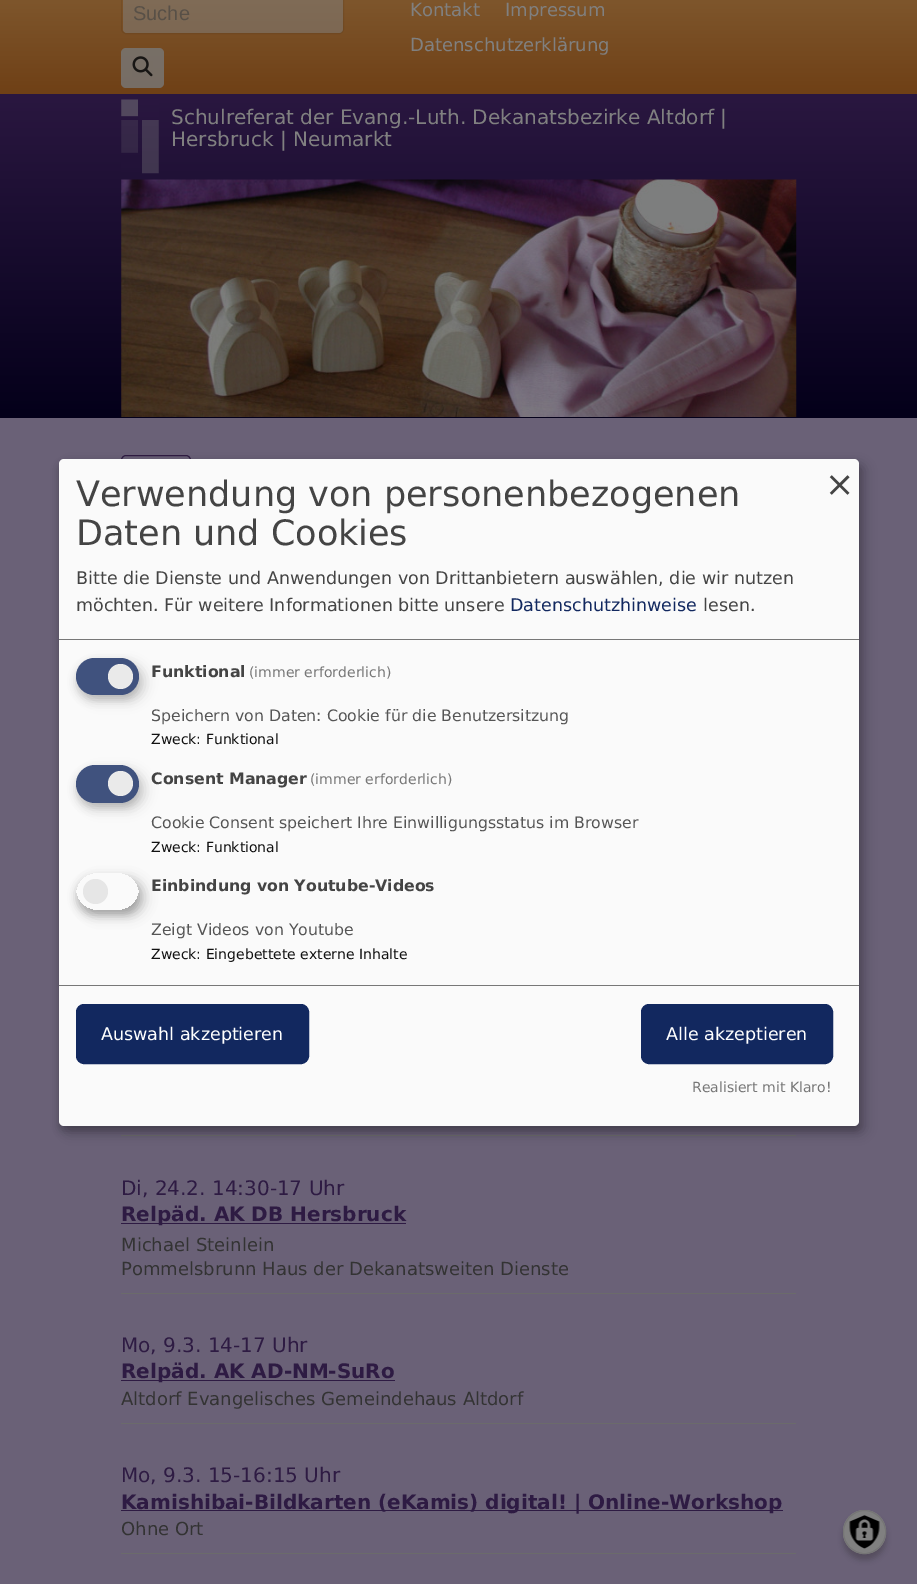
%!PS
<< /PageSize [917 1584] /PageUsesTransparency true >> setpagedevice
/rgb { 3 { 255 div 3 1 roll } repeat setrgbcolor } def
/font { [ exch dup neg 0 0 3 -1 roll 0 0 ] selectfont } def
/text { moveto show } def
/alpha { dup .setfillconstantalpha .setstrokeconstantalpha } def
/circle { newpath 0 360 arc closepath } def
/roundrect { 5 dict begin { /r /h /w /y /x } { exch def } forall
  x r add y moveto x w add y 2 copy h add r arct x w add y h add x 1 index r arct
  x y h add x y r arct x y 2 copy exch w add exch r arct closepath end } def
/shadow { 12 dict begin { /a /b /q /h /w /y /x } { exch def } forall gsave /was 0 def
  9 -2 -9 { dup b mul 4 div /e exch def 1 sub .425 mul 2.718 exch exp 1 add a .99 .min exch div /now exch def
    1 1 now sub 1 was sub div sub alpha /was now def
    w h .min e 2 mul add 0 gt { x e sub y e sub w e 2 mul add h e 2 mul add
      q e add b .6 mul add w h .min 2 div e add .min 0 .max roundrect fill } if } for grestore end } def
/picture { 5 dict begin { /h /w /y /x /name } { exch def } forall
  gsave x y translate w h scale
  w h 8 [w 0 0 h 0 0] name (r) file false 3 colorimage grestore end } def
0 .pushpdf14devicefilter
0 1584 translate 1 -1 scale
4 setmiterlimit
106 97 119 rgb
0 0 917 1584 rectfill
gsave 0 0 moveto 917 0 rlineto 0 94 rlineto -917 0 rlineto closepath clip newpath
<< /ShadingType 2 /ColorSpace /DeviceRGB /Coords [459 -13 459 94] /Extend [true true] /Function << /FunctionType 2 /Domain [0 1] /C0 [0.502 0.349 0.184] /C1 [0.435 0.251 0.086] /N 1 >> >> shfill grestore
0.5 alpha
128 128 128 rgb
123 -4 220 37 4 roundrect fill
0.07 alpha
0 0 0 rgb
121.5 -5.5 222 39 4.5 roundrect stroke
0.8 alpha
120 120 120 rgb
121 48 43 40 5 roundrect fill
1 alpha
(img_01.rgb) 132 56 21 21 picture
gsave 0 94 moveto 917 0 rlineto 0 324 rlineto -917 0 rlineto closepath clip newpath
<< /ShadingType 2 /ColorSpace /DeviceRGB /Coords [459 94 459 418] /Extend [true true] /Function << /FunctionType 2 /Domain [0 1] /C0 [0.165 0.09 0.251] /C1 [0.016 0 0.102] /N 1 >> >> shfill grestore
(img_02.rgb) 121 99 38 75 picture
(img_03.rgb) 121 179 676 238 picture
46 27 67 rgb
121.5 455.5 69 49 4.5 roundrect stroke
107 107 107 rgb
121 1135 675 1 rectfill
121 1293 675 1 rectfill
46 27 67 rgb
121 1223 285 1 rectfill
107 107 107 rgb
121 1423 675 1 rectfill
46 27 67 rgb
121 1380 274 1 rectfill
107 107 107 rgb
121 1553 675 1 rectfill
46 27 67 rgb
121 1510 662 1 rectfill
0 0 0 rgb
65 465 800 668 5 6 0.19 shadow
59 464 800 667 5 4 0.2 shadow
250 250 250 rgb
59 459 800 667 5 roundrect fill
119 119 119 rgb
59 639 800 1 rectfill
0 0 0 rgb
83 664 62 37 18.5 6 0.15 shadow
50 50 50 rgb
76 663 63 37 18.5 4 0.2 shadow
64 82 126 rgb
76 658 63 37 18.5 roundrect fill
234 234 234 rgb
120.5 676.5 12.5 circle fill
0 0 0 rgb
83 771 62 38 19 6 0.15 shadow
50 50 50 rgb
76 770 63 38 19 4 0.2 shadow
64 82 126 rgb
76 765 63 38 19 roundrect fill
234 234 234 rgb
120.5 783.5 12.5 circle fill
gsave
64 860 moveto 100 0 rlineto 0 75 rlineto -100 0 rlineto closepath 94.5 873 moveto 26 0 rlineto 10 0 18.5 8.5 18.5 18.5 rcurveto 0 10 -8.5 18.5 -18.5 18.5 rcurveto -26 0 rlineto -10 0 -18.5 -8.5 -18.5 -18.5 rcurveto 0 -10 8.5 -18.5 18.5 -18.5 rcurveto closepath eoclip newpath
0 0 0 rgb
83 879 62 37 18.5 6 0.19 shadow
grestore
gsave
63 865 moveto 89 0 rlineto 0 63 rlineto -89 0 rlineto closepath 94.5 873 moveto 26 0 rlineto 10 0 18.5 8.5 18.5 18.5 rcurveto 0 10 -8.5 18.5 -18.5 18.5 rcurveto -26 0 rlineto -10 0 -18.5 -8.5 -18.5 -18.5 rcurveto 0 -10 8.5 -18.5 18.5 -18.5 rcurveto closepath eoclip newpath
0 0 0 rgb
76 878 63 37 18.5 4 0.2 shadow
grestore
230 230 230 rgb
95.5 891.5 12.5 circle fill
119 119 119 rgb
59 985 800 1 rectfill
18 40 95 rgb
78 1006 229 56 6 roundrect gsave fill grestore
4 setlinewidth
stroke
643 1006 188 56 6 roundrect gsave fill grestore
stroke
0 0 0 rgb
843 1516 43 44 21.5 3 0.2 shadow
128 128 128 rgb
843 1510 43 44 21.5 roundrect fill
(img_04.rgb) 849 1515 31 34 picture
117 117 117 rgb
1 setlinewidth
843.5 1510.5 42 43 21 roundrect stroke
/LiberationSans-Regular 20 font
88 80 71 rgb
(Suche) 133 20 text
/DejaVuSans-Regular 18 font
128 128 128 rgb
(Kontakt) 410 16 text
(Impressum) 505 16 text
(Datenschutzerklärung) 410 51 text
/DejaVuSans-Regular 20 font
(Schulreferat der Evang.-Luth. Dekanatsbezirke Altdorf |) 171 124 text
(Hersbruck | Neumarkt) 171 146 text
46 27 67 rgb
(Di, 24.2. 14:30-17 Uhr) 121 1195 text
/DejaVuSans-Bold 20 font
(Relpäd. AK DB Hersbruck) 121 1221 text
/DejaVuSans-Regular 18 font
51 51 51 rgb
(Michael Steinlein) 121 1251 text
(Pommelsbrunn Haus der Dekanatsweiten Dienste) 121 1275 text
/DejaVuSans-Regular 20 font
46 27 67 rgb
(Mo, 9.3. 14-17 Uhr) 121 1352 text
/DejaVuSans-Bold 20 font
(Relpäd. AK AD-NM-SuRo) 121 1378 text
/DejaVuSans-Regular 18 font
51 51 51 rgb
(Altdorf Evangelisches Gemeindehaus Altdorf) 121 1405 text
/DejaVuSans-Regular 20 font
46 27 67 rgb
(Mo, 9.3. 15-16:15 Uhr) 121 1482 text
/DejaVuSans-Bold 20 font
(Kamishibai-Bildkarten \(eKamis\) digital! | Online-Workshop) 121 1509 text
/DejaVuSans-Regular 18 font
51 51 51 rgb
(Ohne Ort) 121 1535 text
/DejaVuSans-Regular 35 font
68 68 68 rgb
(Verwendung von personenbezogenen) 76 506 text
(Daten und Cookies) 76 545 text
/DejaVuSans-Regular 17.5 font
(Bitte die Dienste und Anwendungen von Drittanbietern auswählen, die wir nutzen) 76 584 text
(möchten. Für weitere Informationen bitte unsere) 76 611 text
18 40 95 rgb
(Datenschutzhinweise) 510 611 text
68 68 68 rgb
(lesen.) 703 611 text
/DejaVuSans-Regular 35 font
(×) 825 496 text
/DejaVuSans-Bold 15.75 font
(Funktional) 151 677 text
/DejaVuSans-Regular 14 font
119 119 119 rgb
(\(immer erforderlich\)) 249 677 text
/DejaVuSans-Regular 15.75 font
85 85 85 rgb
(Speichern von Daten: Cookie für die Benutzersitzung) 151 721 text
/DejaVuSans-Regular 14 font
17 17 17 rgb
(Zweck: Funktional) 151 744 text
/DejaVuSans-Bold 15.75 font
68 68 68 rgb
(Consent Manager) 151 784 text
/DejaVuSans-Regular 14 font
119 119 119 rgb
(\(immer erforderlich\)) 310 784 text
/DejaVuSans-Regular 15.75 font
85 85 85 rgb
(Cookie Consent speichert Ihre Einwilligungsstatus im Browser) 151 828 text
/DejaVuSans-Regular 14 font
17 17 17 rgb
(Zweck: Funktional) 151 852 text
/DejaVuSans-Bold 15.75 font
68 68 68 rgb
(Einbindung von Youtube-Videos) 151 891 text
/DejaVuSans-Regular 15.75 font
85 85 85 rgb
(Zeigt Videos von Youtube) 151 935 text
/DejaVuSans-Regular 14 font
17 17 17 rgb
(Zweck: Eingebettete externe Inhalte) 151 959 text
/DejaVuSans-Regular 17.5 font
255 255 255 rgb
(Auswahl akzeptieren) 101 1040 text
(Alle akzeptieren) 666 1040 text
/DejaVuSans-Regular 14 font
119 119 119 rgb
(Realisiert mit Klaro!) 692 1092 text
.poppdf14devicefilter showpage
